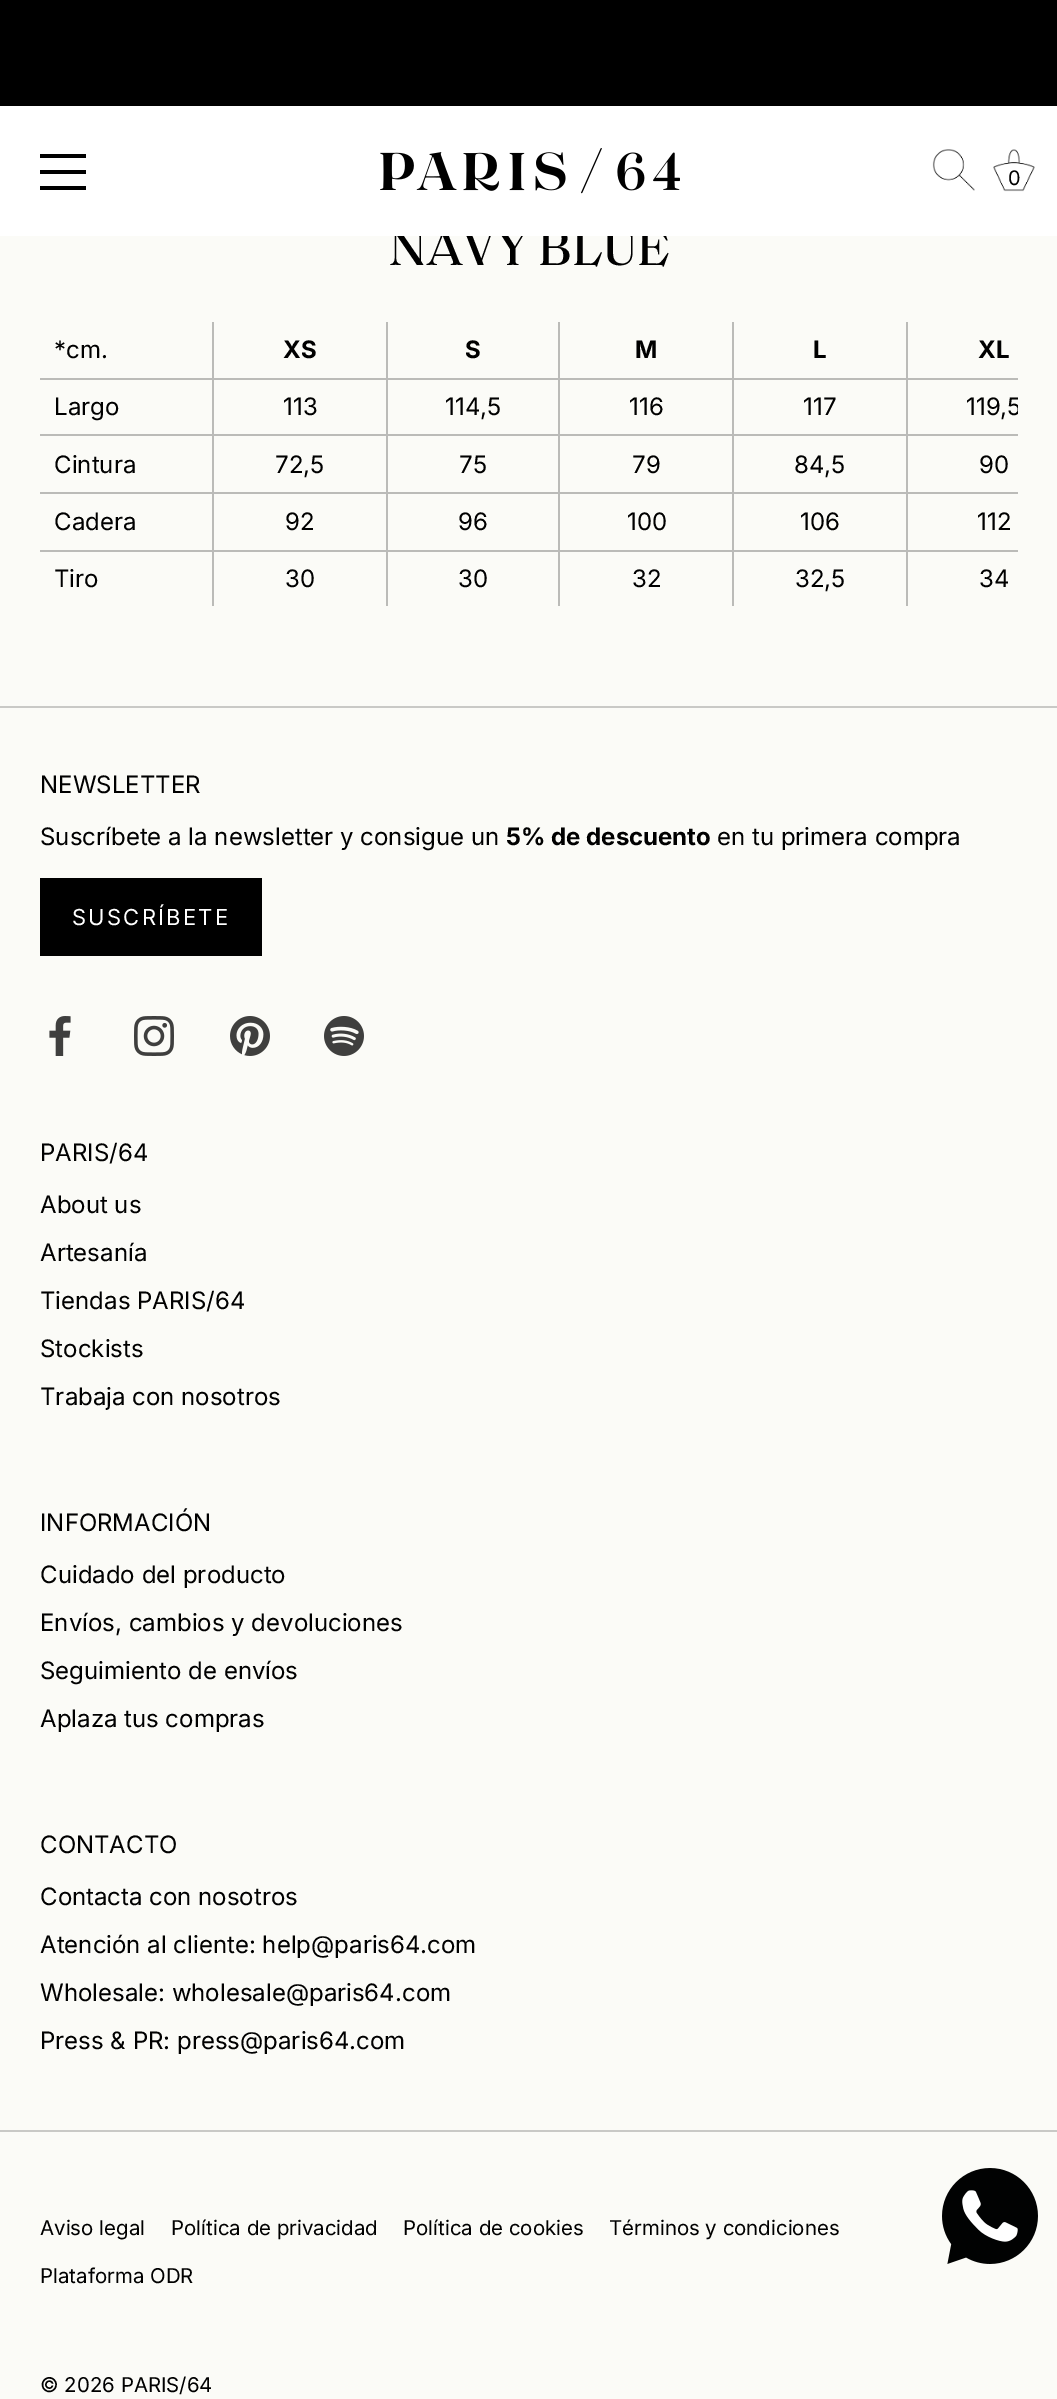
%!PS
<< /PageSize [1057 2399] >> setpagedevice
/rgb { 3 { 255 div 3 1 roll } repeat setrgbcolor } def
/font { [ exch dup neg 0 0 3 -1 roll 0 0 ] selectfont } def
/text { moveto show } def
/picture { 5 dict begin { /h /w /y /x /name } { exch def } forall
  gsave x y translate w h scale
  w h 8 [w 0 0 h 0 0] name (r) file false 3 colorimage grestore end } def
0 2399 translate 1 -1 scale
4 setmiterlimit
251 251 247 rgb
0 0 1057 2399 rectfill
0 0 0 rgb
0 0 1057 106 rectfill
187 187 184 rgb
40 378 978 2 rectfill
40 434 978 2 rectfill
40 492 978 2 rectfill
40 550 978 2 rectfill
212 322 2 284 rectfill
386 322 2 284 rectfill
558 322 2 284 rectfill
732 322 2 284 rectfill
906 322 2 284 rectfill
201 201 198 rgb
0 706 1057 2 rectfill
0 0 0 rgb
40 878 222 78 rectfill
(img_04.rgb) 49 1016 22 40 picture
(img_05.rgb) 134 1016 40 40 picture
(img_06.rgb) 230 1016 40 40 picture
(img_07.rgb) 324 1016 40 40 picture
201 201 198 rgb
0 2130 1057 2 rectfill
(img_08.rgb) 942 2168 96 96 picture
/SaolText-Medium 52 font
0 0 0 rgb
(NAVY BLUE) 389 265 text
255 255 255 rgb
0 106 1057 130 rectfill
(img_03.rgb) 993 149 42 43 picture
/Inter-Regular 20 font
0 0 0 rgb
(0) 1008 185 text
(img_02.rgb) 932 149 43 42 picture
(img_01.rgb) 380 148 300 46 picture
40 186 46 4 rectfill
40 170 46 4 rectfill
40 154 46 4 rectfill
/Inter-Regular 24 font
(*cm.) 54 358 text
/Inter-Bold 24 font
(XS) 283 358 text
(S) 465 358 text
(M) 635 358 text
(L) 813 358 text
(XL) 978 358 text
/Inter-Regular 24 font
(Largo) 54 415 text
(113) 283 415 text
(114,5) 445 415 text
(116) 629 415 text
(117) 803 415 text
gsave
40 322 978 284 rectclip
(119,5) 966 415 text
grestore
(Cintura) 54 473 text
(72,5) 275 473 text
(75) 459 473 text
(79) 632 473 text
(84,5) 794 473 text
(90) 979 473 text
(Cadera) 54 530 text
(92) 285 530 text
(96) 458 530 text
(100) 627 530 text
(106) 800 530 text
(112) 977 530 text
(Tiro) 54 587 text
(30) 285 587 text
(30) 458 587 text
(32) 632 587 text
(32,5) 795 587 text
(34) 979 587 text
(NEWSLETTER) 40 793 text
(Suscríbete a la newsletter y consigue un) 40 845 text
/Inter-Bold 24 font
(5% de descuento) 506 845 text
/Inter-Regular 24 font
(en tu primera compra) 717 845 text
/Inter-Regular 22 font
255 255 255 rgb
72 925 moveto 2.25 0 (SUSCRÍBETE) ashow
/Inter-Regular 24 font
0 0 0 rgb
(PARIS/64) 40 1161 text
(About us) 40 1213 text
(Artesanía) 40 1261 text
(Tiendas PARIS/64) 40 1309 text
(Stockists) 40 1357 text
(Trabaja con nosotros) 40 1405 text
(INFORMACIÓN) 40 1531 text
(Cuidado del producto) 40 1583 text
(Envíos, cambios y devoluciones) 40 1631 text
(Seguimiento de envíos) 40 1679 text
(Aplaza tus compras) 40 1727 text
(CONTACTO) 40 1853 text
(Contacta con nosotros) 40 1905 text
(Atención al cliente: help@paris64.com) 40 1953 text
(Wholesale: wholesale@paris64.com) 40 2001 text
(Press & PR: press@paris64.com) 40 2049 text
/Inter-Regular 20.4 font
(Aviso legal) 40 2235 text
(Política de privacidad) 171 2235 text
(Política de cookies) 403 2235 text
(Términos y condiciones) 609 2235 text
(Plataforma ODR) 40 2283 text
(© 2026 PARIS/64) 40 2392 text
showpage
